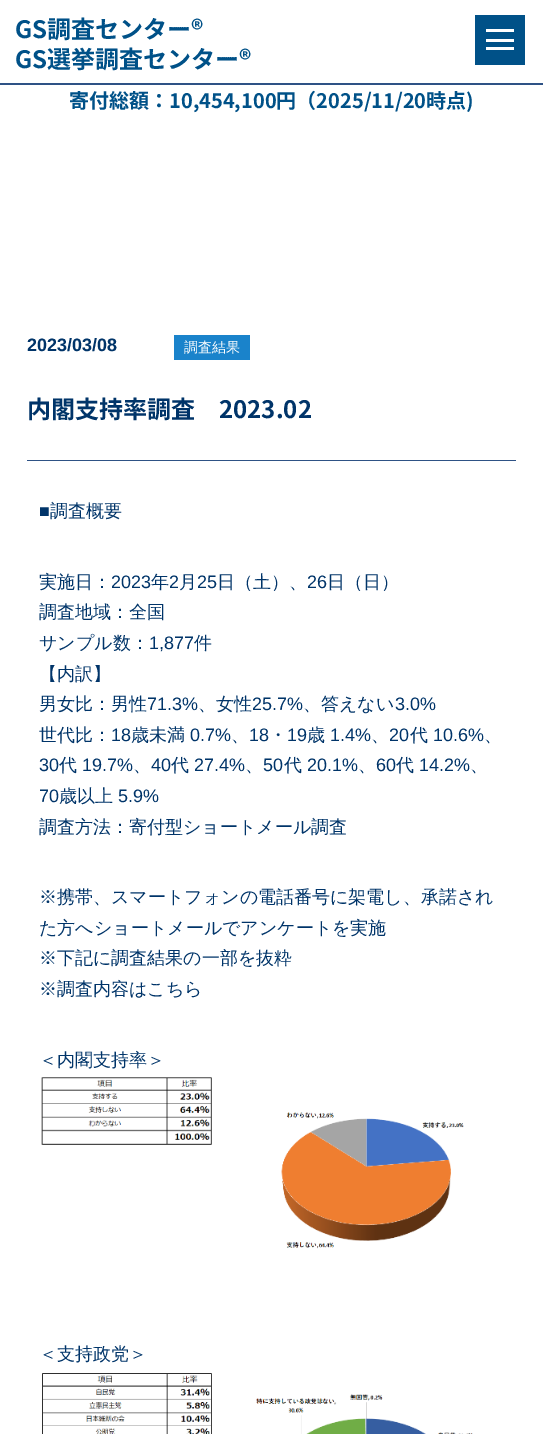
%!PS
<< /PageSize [543 1434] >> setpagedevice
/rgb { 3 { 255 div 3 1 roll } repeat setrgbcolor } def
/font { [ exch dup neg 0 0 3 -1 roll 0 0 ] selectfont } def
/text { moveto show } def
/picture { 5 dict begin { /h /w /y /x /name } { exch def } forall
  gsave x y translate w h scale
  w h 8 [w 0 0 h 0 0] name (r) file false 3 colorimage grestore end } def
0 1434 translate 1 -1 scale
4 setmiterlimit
255 255 255 rgb
0 0 543 1434 rectfill
46 82 133 rgb
0 83 543 2 rectfill
0 81 136 rgb
475 15 50 50 rectfill
255 255 255 rgb
486 29 28 3 rectfill
486 39 28 3 rectfill
486 47 28 3 rectfill
26 131 203 rgb
174 335 76 25 rectfill
46 82 133 rgb
27 460 489 1 rectfill
(img_01.rgb) 41 1077 423 172 picture
(img_02.rgb) 42 1373 431 61 picture
/NotoSansJP-Bold 24 font
0 81 136 rgb
(GS調査センター®) 15 38 text
(GS選挙調査センター®) 15 68 text
/NotoSansJP-Bold 20 font
(寄付総額：10,454,100円（2025/11/20時点\)) 69 108 text
/LiberationSans-Bold 18 font
0 52 105 rgb
(2023/03/08) 27 351 text
/WenQuanYiZenHei-Medium 14 font
255 255 255 rgb
(調査結果) 184 352 text
/NotoSansJP-Bold 24 font
0 52 105 rgb
(内閣支持率調査　2023.02) 27 418 text
/LiberationSans-Regular 18 font
(■) 39 517 text
/WenQuanYiZenHei-Medium 18 font
(調査概要) 50 517 text
(実施日：) 39 588 text
/LiberationSans-Regular 18 font
(2023) 111 588 text
/WenQuanYiZenHei-Medium 18 font
(年) 151 588 text
/LiberationSans-Regular 18 font
(2) 169 588 text
/WenQuanYiZenHei-Medium 18 font
(月) 179 588 text
/LiberationSans-Regular 18 font
(25) 197 588 text
/WenQuanYiZenHei-Medium 18 font
(日（土）、) 217 588 text
/LiberationSans-Regular 18 font
(26) 307 588 text
/WenQuanYiZenHei-Medium 18 font
(日（日）) 327 588 text
(調査地域：全国) 39 618 text
(サンプル数：) 39 649 text
/LiberationSans-Regular 18 font
(1,877) 149 649 text
/WenQuanYiZenHei-Medium 18 font
(件) 194 649 text
(【内訳】) 39 680 text
(男女比：男性) 39 710 text
/LiberationSans-Regular 18 font
(71.3%) 147 710 text
/WenQuanYiZenHei-Medium 18 font
(、女性) 198 710 text
/LiberationSans-Regular 18 font
(25.7%) 252 710 text
/WenQuanYiZenHei-Medium 18 font
(、答えない) 303 710 text
/LiberationSans-Regular 18 font
(3.0%) 395 710 text
/WenQuanYiZenHei-Medium 18 font
(世代比：) 39 741 text
/LiberationSans-Regular 18 font
(18) 111 741 text
/WenQuanYiZenHei-Medium 18 font
(歳未満) 131 741 text
/LiberationSans-Regular 18 font
(0.7%) 190 741 text
(18) 249 741 text
/WenQuanYiZenHei-Medium 18 font
(・) 269 741 text
/LiberationSans-Regular 18 font
(19) 287 741 text
/WenQuanYiZenHei-Medium 18 font
(歳) 307 741 text
/LiberationSans-Regular 18 font
(1.4%) 330 741 text
(20) 389 741 text
/WenQuanYiZenHei-Medium 18 font
(代) 410 741 text
/LiberationSans-Regular 18 font
(10.6%) 433 741 text
/WenQuanYiZenHei-Medium 18 font
(、) 231 741 text
(、) 371 741 text
(、) 484 741 text
/LiberationSans-Regular 18 font
(30) 39 771 text
/WenQuanYiZenHei-Medium 18 font
(代) 59 771 text
/LiberationSans-Regular 18 font
(19.7%) 82 771 text
/WenQuanYiZenHei-Medium 18 font
(、) 133 771 text
/LiberationSans-Regular 18 font
(40) 151 771 text
/WenQuanYiZenHei-Medium 18 font
(代) 171 771 text
/LiberationSans-Regular 18 font
(27.4%) 194 771 text
/WenQuanYiZenHei-Medium 18 font
(、) 245 771 text
/LiberationSans-Regular 18 font
(50) 263 771 text
/WenQuanYiZenHei-Medium 18 font
(代) 284 771 text
/LiberationSans-Regular 18 font
(20.1%) 307 771 text
/WenQuanYiZenHei-Medium 18 font
(、) 358 771 text
/LiberationSans-Regular 18 font
(60) 376 771 text
/WenQuanYiZenHei-Medium 18 font
(代) 396 771 text
/LiberationSans-Regular 18 font
(14.2%) 419 771 text
/WenQuanYiZenHei-Medium 18 font
(、) 470 771 text
/LiberationSans-Regular 18 font
(70) 39 802 text
/WenQuanYiZenHei-Medium 18 font
(歳以上) 59 802 text
/LiberationSans-Regular 18 font
(5.9%) 118 802 text
/WenQuanYiZenHei-Medium 18 font
(調査方法：寄付型ショートメール調査) 39 833 text
(※携帯、スマートフォンの電話番号に架電し、承諾され) 39 903 text
(た方へショートメールでアンケートを実施) 39 934 text
(※下記に調査結果の一部を抜粋) 39 964 text
(※調査内容はこちら) 39 995 text
(＜内閣支持率＞) 39 1066 text
(＜支持政党＞) 39 1360 text
showpage
